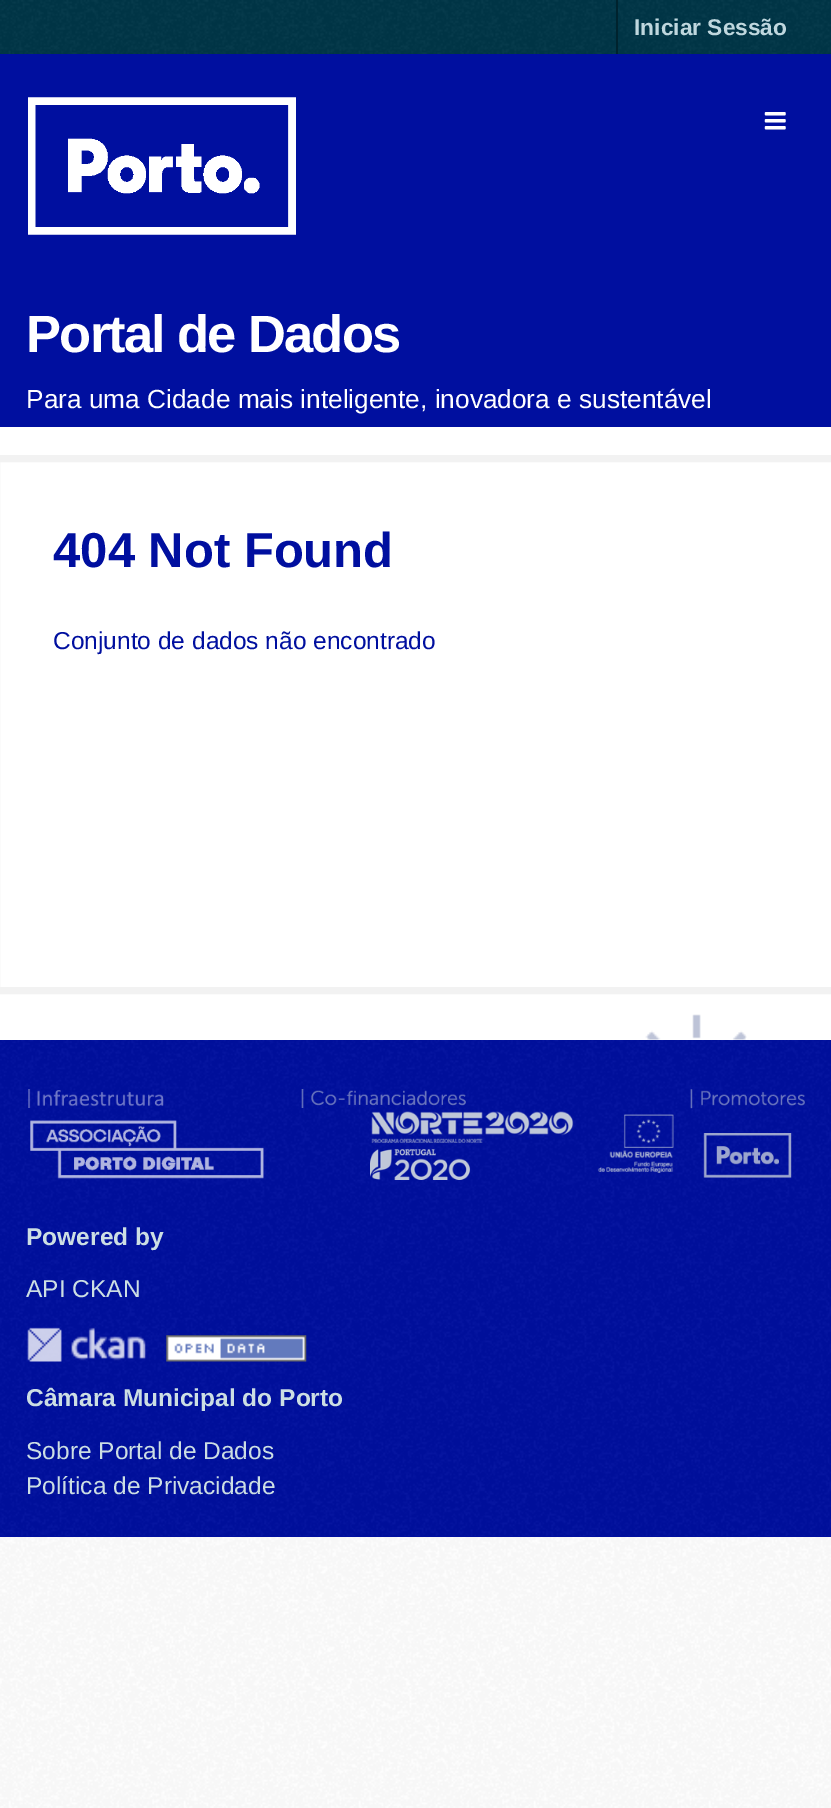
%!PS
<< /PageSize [831 1808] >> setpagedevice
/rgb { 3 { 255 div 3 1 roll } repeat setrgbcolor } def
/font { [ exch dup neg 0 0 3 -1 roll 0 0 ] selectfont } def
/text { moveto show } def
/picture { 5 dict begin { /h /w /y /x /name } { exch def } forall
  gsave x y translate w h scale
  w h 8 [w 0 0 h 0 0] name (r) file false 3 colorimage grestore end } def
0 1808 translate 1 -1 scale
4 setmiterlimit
255 255 255 rgb
0 0 831 1808 rectfill
(img_01.rgb) 0 1537 831 271 picture
0 54 71 rgb
0 0 831 54 rectfill
(img_02.rgb) 0 0 831 54 picture
0 35 46 rgb
616 0 2 54 rectfill
0 15 159 rgb
0 54 831 373 rectfill
(img_03.rgb) 764 112 22 18 picture
(img_04.rgb) 28 97 268 138 picture
(img_05.rgb) 645 1014 102 26 picture
242 242 242 rgb
7 setlinewidth
-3.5 458.5 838 532 rectstroke
0 15 159 rgb
0 1040 831 497 rectfill
(img_06.rgb) 0 1040 831 496 picture
(img_07.rgb) 28 1089 777 91 picture
(img_08.rgb) 27 1327 119 35 picture
(img_09.rgb) 166 1335 141 27 picture
/LiberationSans-Bold 22.75 font
191 215 222 rgb
(Iniciar Sessão) 634 35 text
/LiberationSans-Bold 52.5 font
255 255 255 rgb
26 352 moveto -1.75 0 (Portal de Dados) ashow
/LiberationSans-Regular 26.25 font
(Para uma Cidade mais inteligente, inovadora e sustentável) 26 408 text
/LiberationSans-Bold 49 font
0 15 159 rgb
(404 Not Found) 53 567 text
/LiberationSans-Regular 24.5 font
(Conjunto de dados não encontrado) 53 649 text
/LiberationSans-Bold 24.5 font
204 222 227 rgb
(Powered by) 26 1245 text
/LiberationSans-Regular 24.5 font
(API CKAN) 26 1297 text
/LiberationSans-Bold 24.5 font
(Câmara Municipal do Porto) 26 1406 text
/LiberationSans-Regular 24.5 font
(Sobre Portal de Dados) 26 1459 text
(Política de Privacidade) 26 1494 text
showpage
